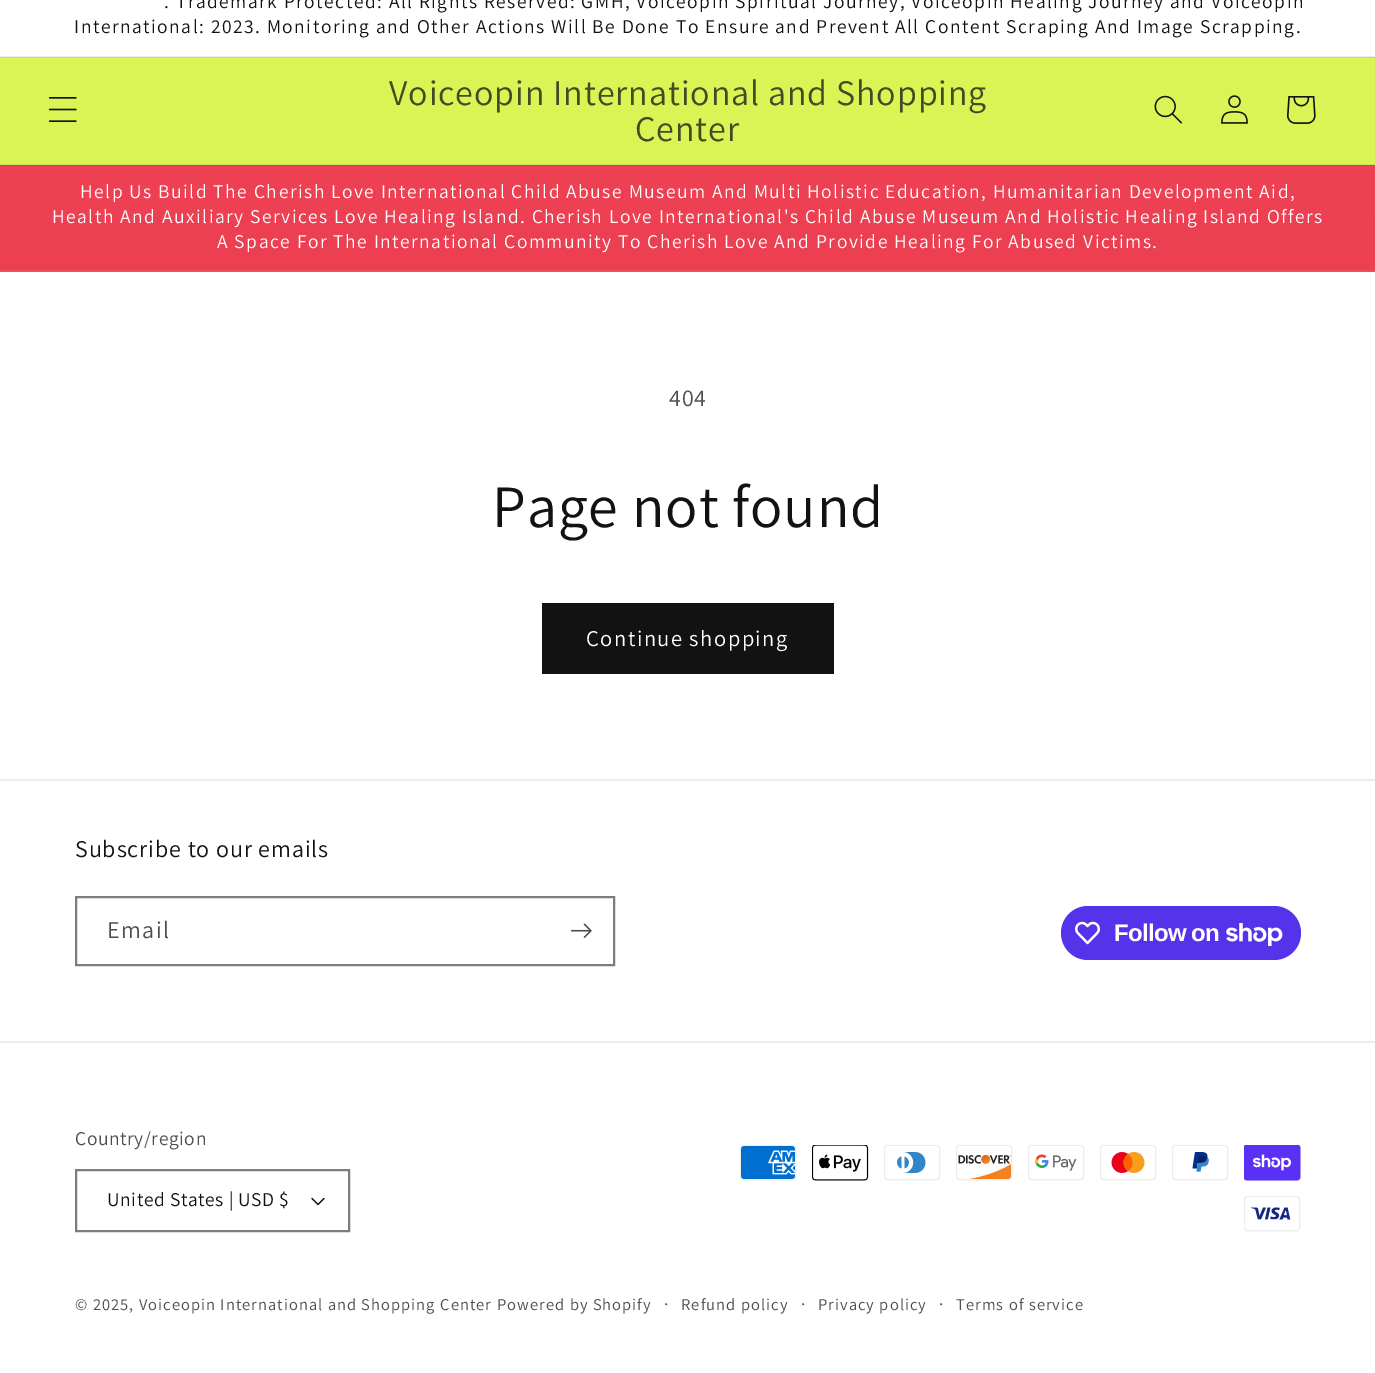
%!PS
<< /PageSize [1375 1373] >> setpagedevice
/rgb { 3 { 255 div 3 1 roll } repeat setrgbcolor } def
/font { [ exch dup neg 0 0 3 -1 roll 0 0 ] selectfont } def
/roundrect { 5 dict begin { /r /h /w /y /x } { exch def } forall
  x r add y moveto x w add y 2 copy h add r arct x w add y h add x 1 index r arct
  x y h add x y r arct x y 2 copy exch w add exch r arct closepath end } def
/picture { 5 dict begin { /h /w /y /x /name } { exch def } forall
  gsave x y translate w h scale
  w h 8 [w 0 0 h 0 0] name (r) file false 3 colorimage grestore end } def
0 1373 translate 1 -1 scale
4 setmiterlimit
255 255 255 rgb
0 0 1375 1373 rectfill
236 236 236 rgb
0 56 1375 1 rectfill
218 244 86 rgb
0 58 1375 106 rectfill
202 226 81 rgb
0 57 1375 1 rectfill
0 164 1375 1 rectfill
(img_01.rgb) 48 97 29 25 picture
(img_02.rgb) 1154 95 28 29 picture
(img_03.rgb) 1221 95 27 29 picture
(img_04.rgb) 1287 96 29 28 picture
gsave 0 166 moveto 1375 0 rlineto 0 104 rlineto -1375 0 rlineto closepath clip newpath
<< /ShadingType 2 /ColorSpace /DeviceRGB /Coords [688 0 688 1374] /Extend [true true] /Function << /FunctionType 2 /Domain [0 1] /C0 [0.941 0.271 0.341] /C1 [0.867 0.153 0.224] /N 1 >> >> shfill grestore
gsave 0 165 moveto 1375 0 rlineto 0 1 rlineto -1375 0 rlineto closepath clip newpath
<< /ShadingType 2 /ColorSpace /DeviceRGB /Coords [688 0 688 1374] /Extend [true true] /Function << /FunctionType 2 /Domain [0 1] /C0 [0.871 0.255 0.318] /C1 [0.804 0.145 0.212] /N 1 >> >> shfill grestore
238 78 95 rgb
0 270 1375 2 rectfill
18 18 18 rgb
542 603 292 71 rectfill
236 236 236 rgb
0 779 1375 2 rectfill
125 125 125 rgb
2 setlinewidth
76 897 538 68 rectstroke
(img_05.rgb) 570 923 22 15 picture
84 51 235 rgb
1061 906 240 54 27 roundrect fill
(img_06.rgb) 1075 921 25 24 picture
(img_07.rgb) 1226 923 57 23 picture
236 236 236 rgb
0 1041 1375 2 rectfill
(img_08.rgb) 311 1197 14 9 picture
125 125 125 rgb
76 1170 273 61 rectstroke
(img_09.rgb) 740 1145 57 36 picture
(img_10.rgb) 812 1145 57 36 picture
(img_11.rgb) 884 1145 57 36 picture
(img_12.rgb) 956 1145 57 36 picture
(img_13.rgb) 1028 1145 57 36 picture
(img_14.rgb) 1100 1145 57 36 picture
(img_15.rgb) 1172 1145 57 36 picture
(img_16.rgb) 1244 1145 57 36 picture
(img_17.rgb) 1244 1196 57 36 picture
/Assistant-Regular 19.5 font
18 18 18 rgb
164 8 moveto 1.5 0 (. Trademark Protected: All Rights Reserved: GMH, Voiceopin Spiritual Journey, Voiceopin Healing Journey and Voiceopin) ashow
74 33 moveto 1.5 0 (International: 2023. Monitoring and Other Actions Will Be Done To Ensure and Prevent All Content Scraping And Image Scrapping.) ashow
/Assistant-Regular 36 font
68 75 35 rgb
389 105 moveto 0.9 0 (Voiceopin International and Shopping) ashow
635 141 moveto 0.9 0 (Center) ashow
/Assistant-Regular 19.5 font
255 255 255 rgb
80 198 moveto 1.5 0 (Help Us Build The Cherish Love International Child Abuse Museum And Multi Holistic Education, Humanitarian Development Aid,) ashow
52 223 moveto 1.5 0 (Health And Auxiliary Services Love Healing Island. Cherish Love International's Child Abuse Museum And Holistic Healing Island Offers) ashow
217 248 moveto 1.5 0 (A Space For The International Community To Cherish Love And Provide Healing For Abused Victims.) ashow
/Assistant-Regular 24 font
77 77 77 rgb
669 406 moveto 0.9 0 (404) ashow
/Assistant-Regular 60 font
18 18 18 rgb
492 527 moveto 0.9 0 (Page not found) ashow
/Assistant-Regular 22.5 font
255 255 255 rgb
586 646 moveto 1.5 0 (Continue shopping) ashow
/Assistant-Regular 24 font
18 18 18 rgb
75 857 moveto 0.9 0 (Subscribe to our emails) ashow
77 77 77 rgb
107 938 moveto 1.5 0 (Email) ashow
/LiberationSans-Bold 24 font
255 255 255 rgb
1114 941 moveto -0.75 0 (Follow on) ashow
/Assistant-Regular 19.5 font
77 77 77 rgb
75 1145 moveto 0.6 0 (Country/region) ashow
18 18 18 rgb
107 1206 moveto 0.6 0 (United States | USD $) ashow
/Assistant-Regular 16.5 font
77 77 77 rgb
75 1310 moveto 1.05 0 (© 2025, Voiceopin International and Shopping Center) ashow
497 1310 moveto 1.05 0 (Powered by Shopify) ashow
/Assistant-Regular 18 font
664 1310 moveto 1.05 0 (·) ashow
/Assistant-Regular 16.5 font
681 1310 moveto 1.05 0 (Refund policy) ashow
/Assistant-Regular 18 font
801 1310 moveto 1.05 0 (·) ashow
/Assistant-Regular 16.5 font
818 1310 moveto 1.05 0 (Privacy policy) ashow
/Assistant-Regular 18 font
939 1310 moveto 1.05 0 (·) ashow
/Assistant-Regular 16.5 font
956 1310 moveto 1.05 0 (Terms of service) ashow
showpage
